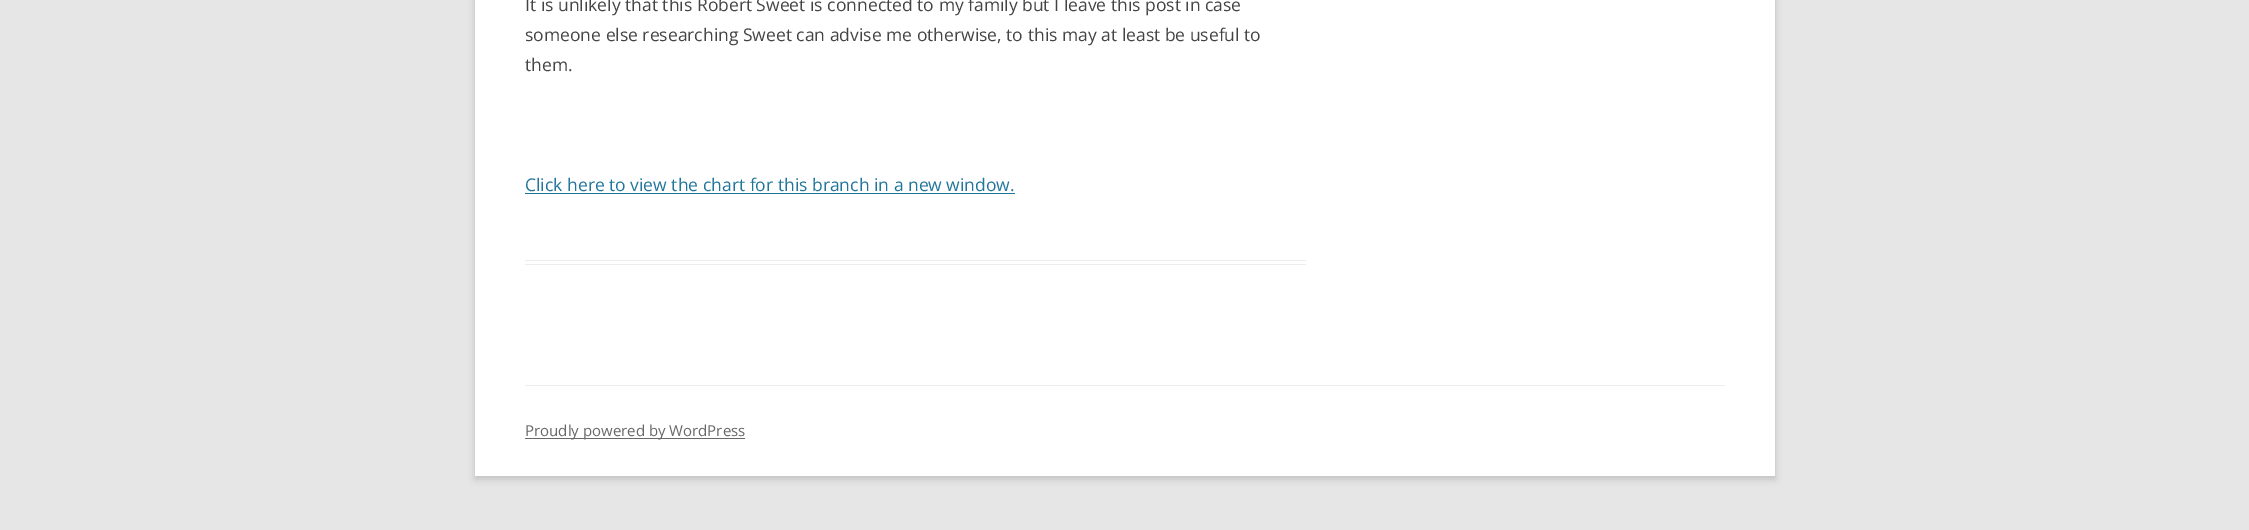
%!PS
<< /PageSize [2249 530] /PageUsesTransparency true >> setpagedevice
/rgb { 3 { 255 div 3 1 roll } repeat setrgbcolor } def
/font { [ exch dup neg 0 0 3 -1 roll 0 0 ] selectfont } def
/text { moveto show } def
/alpha { dup .setfillconstantalpha .setstrokeconstantalpha } def
/roundrect { 5 dict begin { /r /h /w /y /x } { exch def } forall
  x r add y moveto x w add y 2 copy h add r arct x w add y h add x 1 index r arct
  x y h add x y r arct x y 2 copy exch w add exch r arct closepath end } def
/shadow { 12 dict begin { /a /b /q /h /w /y /x } { exch def } forall gsave /was 0 def
  9 -2 -9 { dup b mul 4 div /e exch def 1 sub .425 mul 2.718 exch exp 1 add a .99 .min exch div /now exch def
    1 1 now sub 1 was sub div sub alpha /was now def
    w h .min e 2 mul add 0 gt { x e sub y e sub w e 2 mul add h e 2 mul add
      q e add b .6 mul add w h .min 2 div e add .min 0 .max roundrect fill } if } for grestore end } def
0 .pushpdf14devicefilter
0 530 translate 1 -1 scale
4 setmiterlimit
230 230 230 rgb
0 0 2249 530 rectfill
100 100 100 rgb
475 -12 1300 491 0 4 0.3 shadow
255 255 255 rgb
475 0 1300 476 rectfill
237 237 237 rgb
525 260 781 1 rectfill
525 264 781 1 rectfill
33 117 155 rgb
525 193 490 1 rectfill
237 237 237 rgb
525 385 1200 1 rectfill
104 104 104 rgb
525 438 220 1 rectfill
/OpenSans-Regular 17.5 font
68 68 68 rgb
(It is unlikely that this Robert Sweet is connected to my family but I leave this post in case) 525 11 text
(someone else researching Sweet can advise me otherwise, to this may at least be useful to) 525 41 text
(them.) 525 71 text
33 117 155 rgb
(Click here to view the chart for this branch in a new window.) 525 191 text
/OpenSans-Regular 15 font
104 104 104 rgb
(Proudly powered by WordPress) 525 436 text
.poppdf14devicefilter showpage
